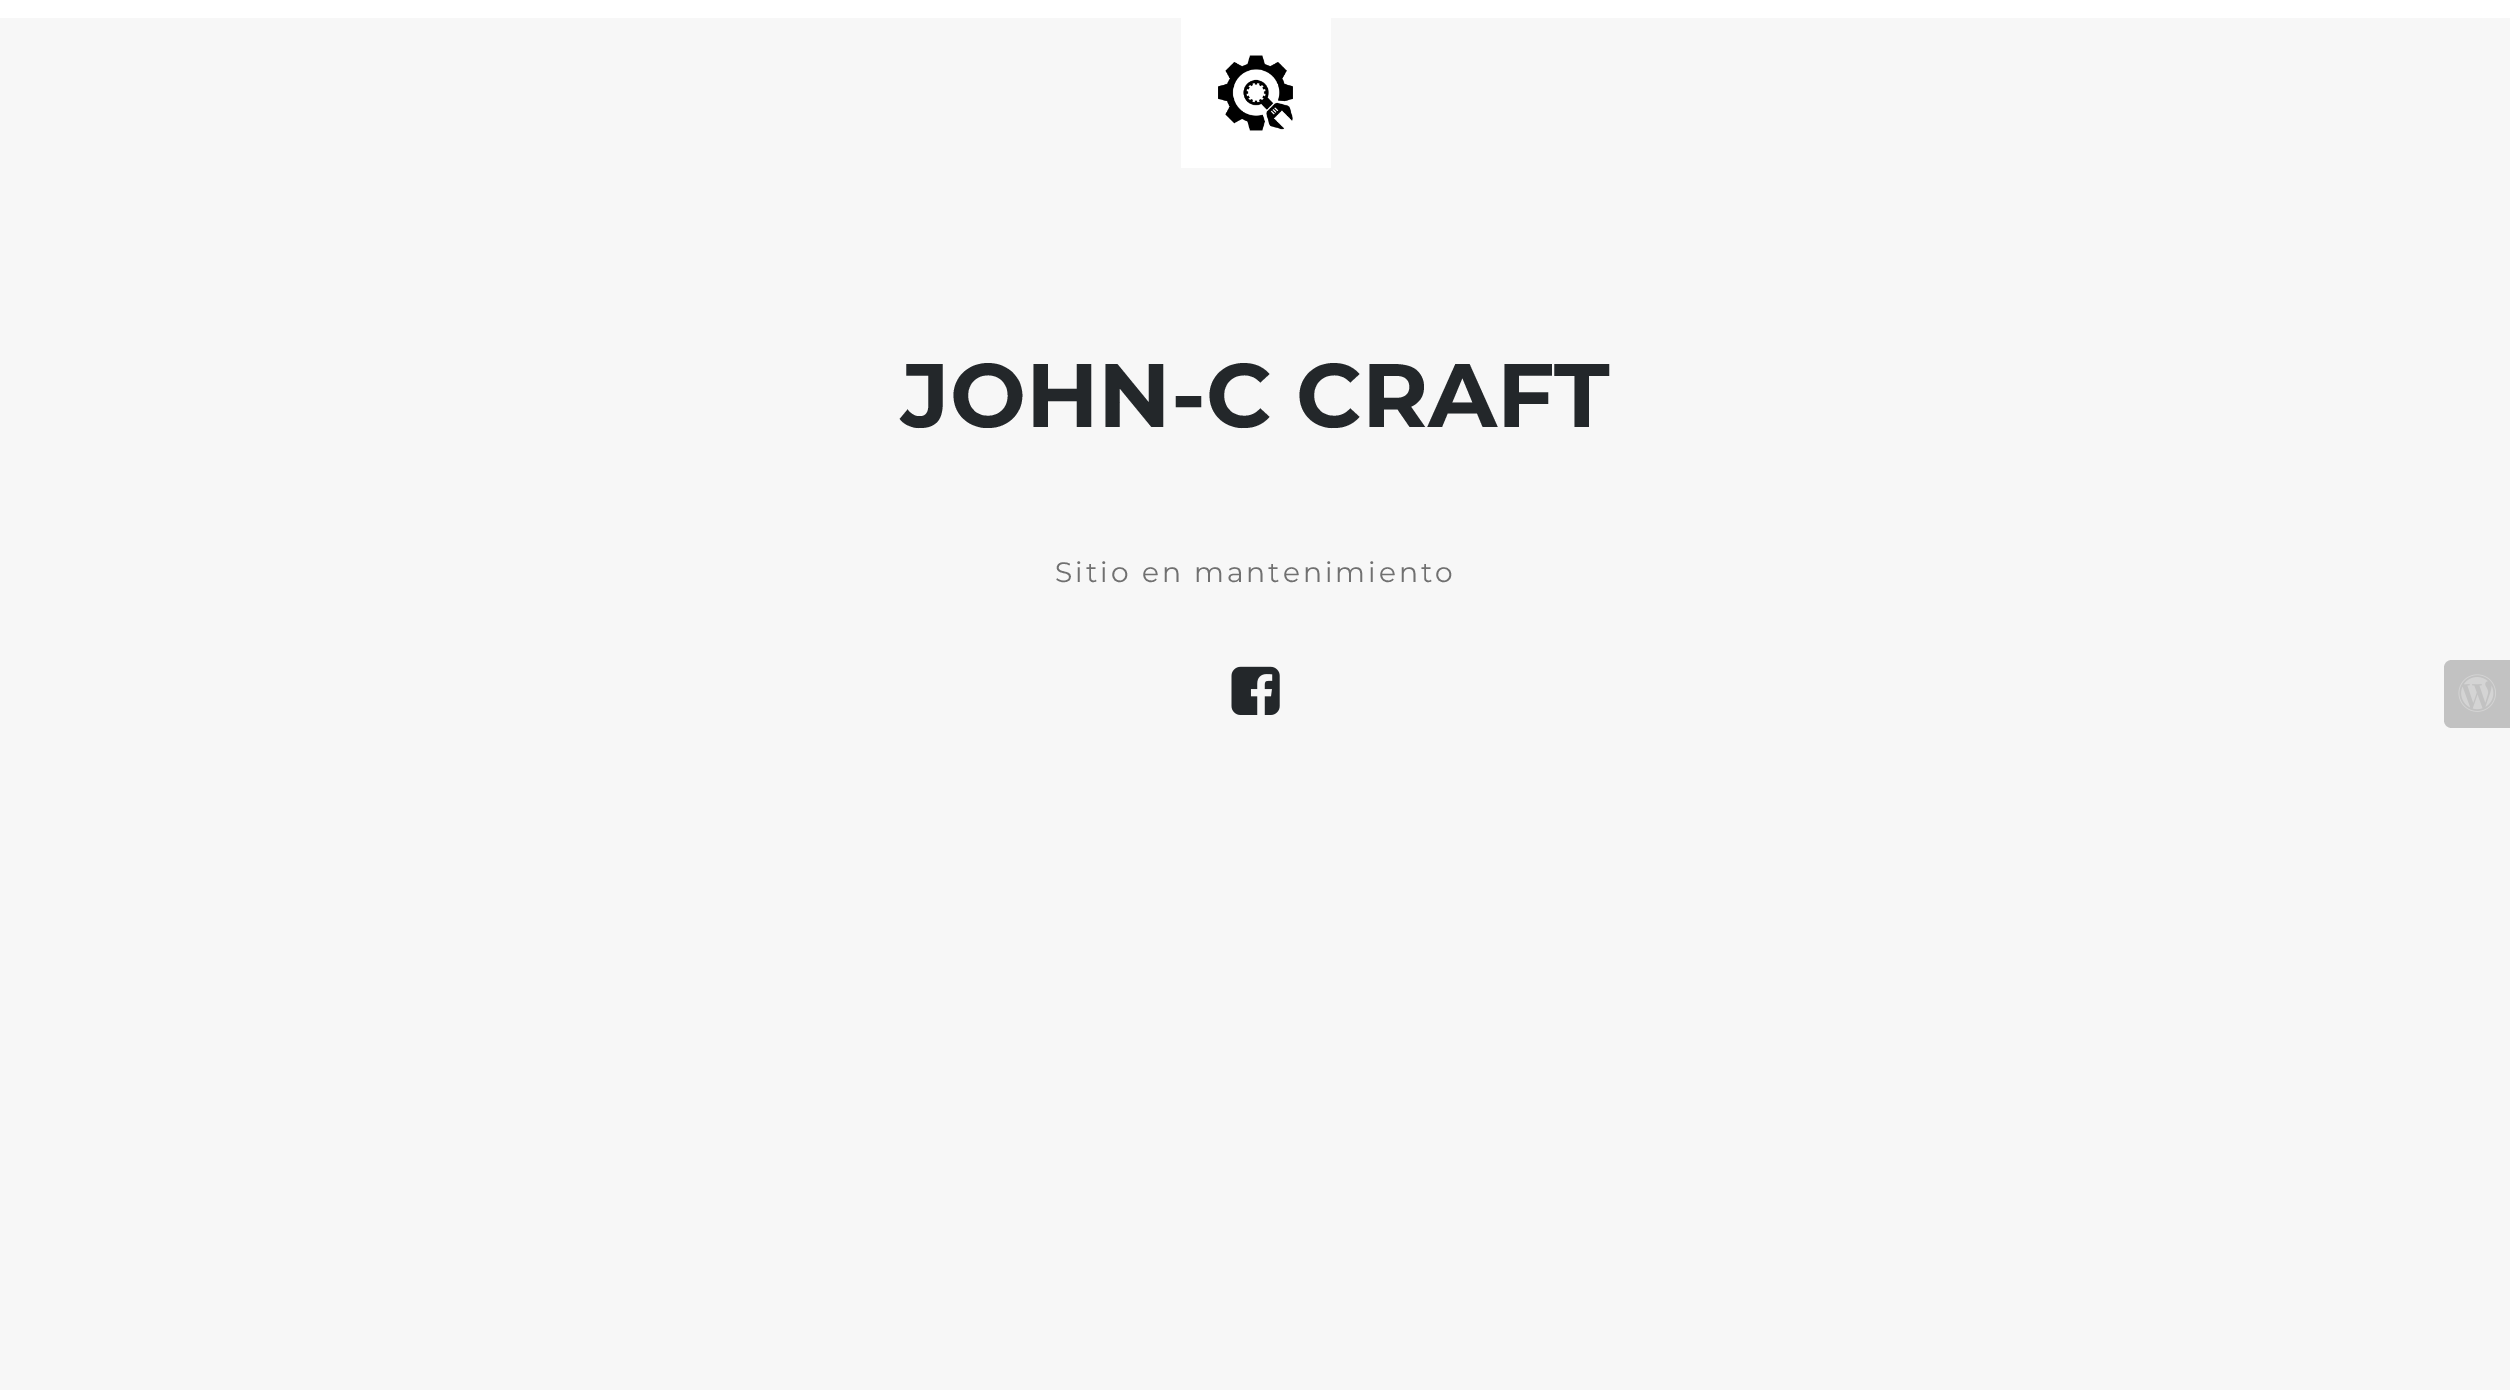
%!PS
<< /PageSize [2510 1390] >> setpagedevice
/rgb { 3 { 255 div 3 1 roll } repeat setrgbcolor } def
/font { [ exch dup neg 0 0 3 -1 roll 0 0 ] selectfont } def
/text { moveto show } def
/picture { 5 dict begin { /h /w /y /x /name } { exch def } forall
  gsave x y translate w h scale
  w h 8 [w 0 0 h 0 0] name (r) file false 3 colorimage grestore end } def
0 1390 translate 1 -1 scale
4 setmiterlimit
247 247 247 rgb
0 0 2510 1390 rectfill
255 255 255 rgb
0 0 2510 18 rectfill
1181 18 150 150 rectfill
(img_01.rgb) 1218 55 75 76 picture
(img_02.rgb) 1231 666 49 49 picture
194 194 194 rgb
2452 660 moveto 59 0 rlineto 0 68 rlineto -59 0 rlineto -4.5 0 -8 -3.5 -8 -8 rcurveto 0 -52 rlineto 0 -4.5 3.5 -8 8 -8 rcurveto closepath fill
(img_03.rgb) 2458 674 38 38 picture
/Montserrat-Thin 90 font
35 39 42 rgb
(JOHN-C CRAFT) 901 427 text
/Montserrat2-Thin 28.1 font
112 112 112 rgb
1055 582 moveto 3 0 (Sitio en mantenimiento) ashow
showpage
